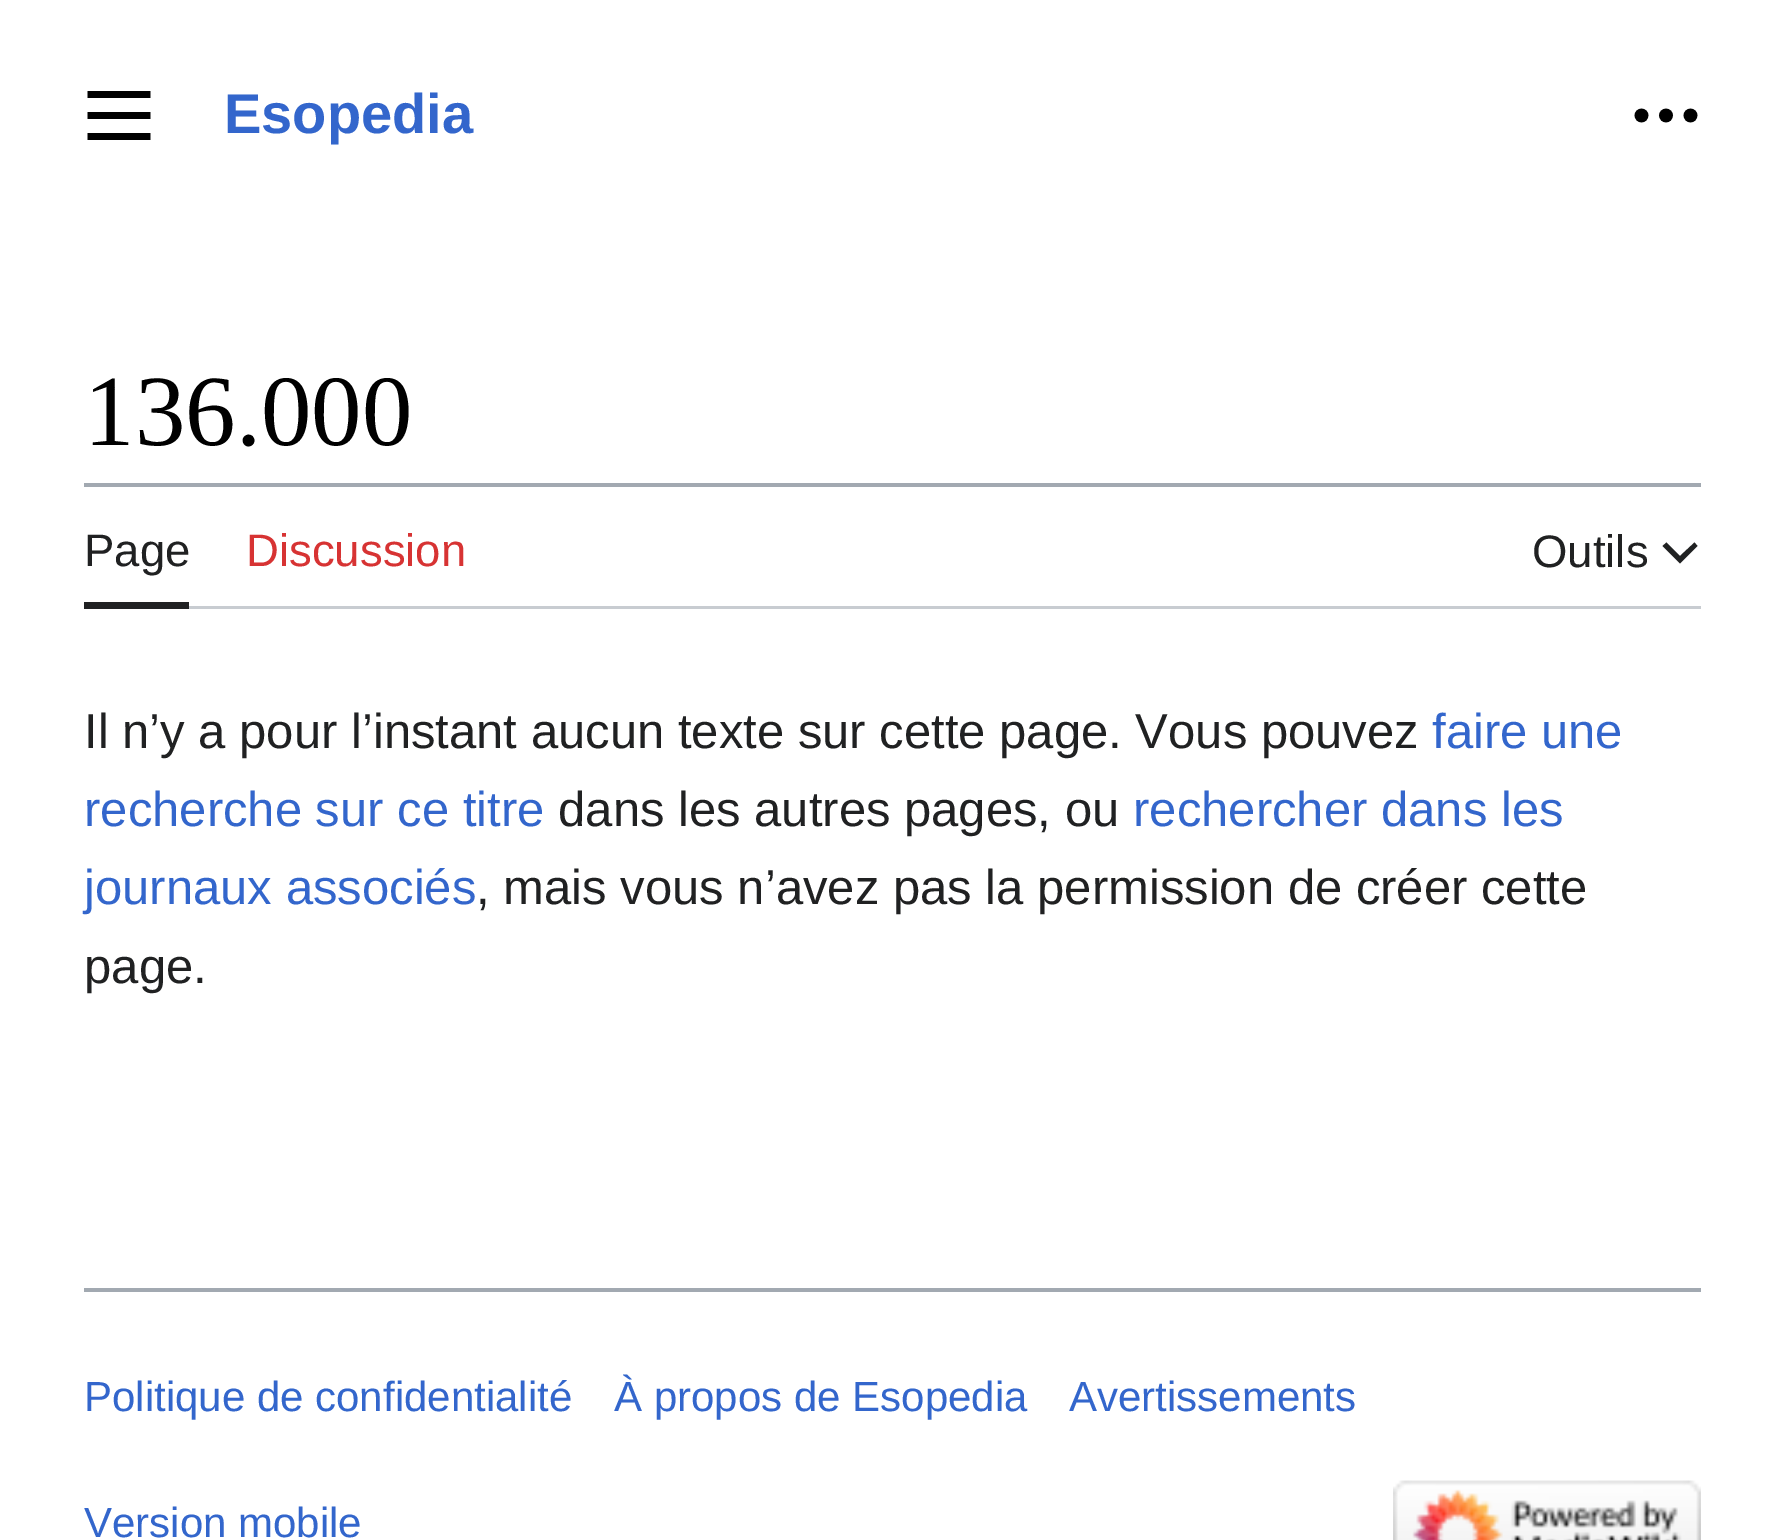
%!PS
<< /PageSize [1785 1540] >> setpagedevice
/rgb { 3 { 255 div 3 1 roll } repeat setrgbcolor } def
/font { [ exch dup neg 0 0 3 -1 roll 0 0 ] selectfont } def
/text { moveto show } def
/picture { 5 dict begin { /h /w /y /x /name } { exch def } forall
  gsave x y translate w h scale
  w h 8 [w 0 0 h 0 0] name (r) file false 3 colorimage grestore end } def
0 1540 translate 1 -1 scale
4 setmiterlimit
255 255 255 rgb
0 0 1785 1540 rectfill
(img_01.rgb) 87 91 64 49 picture
(img_02.rgb) 1634 108 64 15 picture
162 169 177 rgb
84 483 1617 4 rectfill
200 204 209 rgb
189 606 1512 3 rectfill
32 33 34 rgb
84 602 105 7 rectfill
1697.5 546 moveto -3 -3.5 rlineto -14.5 13.5 rlineto -13.5 -13.5 rlineto -4 3.5 rlineto 17.5 17.5 rlineto 17.5 -17.5 rlineto fill
162 169 177 rgb
84 1288 1617 4 rectfill
(img_03.rgb) 1393 1480 308 60 picture
/LiberationSans-Bold 56 font
51 102 204 rgb
(Esopedia) 224 133 text
/LiberationSerif-Regular 101 font
0 0 0 rgb
(136.000) 84 445 text
/LiberationSans-Regular 45.5 font
32 33 34 rgb
(Page) 84 566 text
215 51 51 rgb
(Discussion) 246 566 text
32 33 34 rgb
(Outils) 1532 567 text
/LiberationSans-Regular 49 font
(Il n’y a pour l’instant aucun texte sur cette page. Vous pouvez) 84 748 text
51 102 204 rgb
(faire une) 1432 748 text
(recherche sur ce titre) 84 826 text
32 33 34 rgb
(dans les autres pages, ou) 558 826 text
51 102 204 rgb
(rechercher dans les) 1133 826 text
(journaux associés) 84 904 text
32 33 34 rgb
(, mais vous n’avez pas la permission de créer cette) 476 904 text
(page.) 84 983 text
/LiberationSans-Regular 42 font
51 102 204 rgb
(Politique de confidentialité) 84 1411 text
(À propos de Esopedia) 614 1411 text
(Avertissements) 1069 1411 text
(Version mobile) 84 1537 text
showpage
